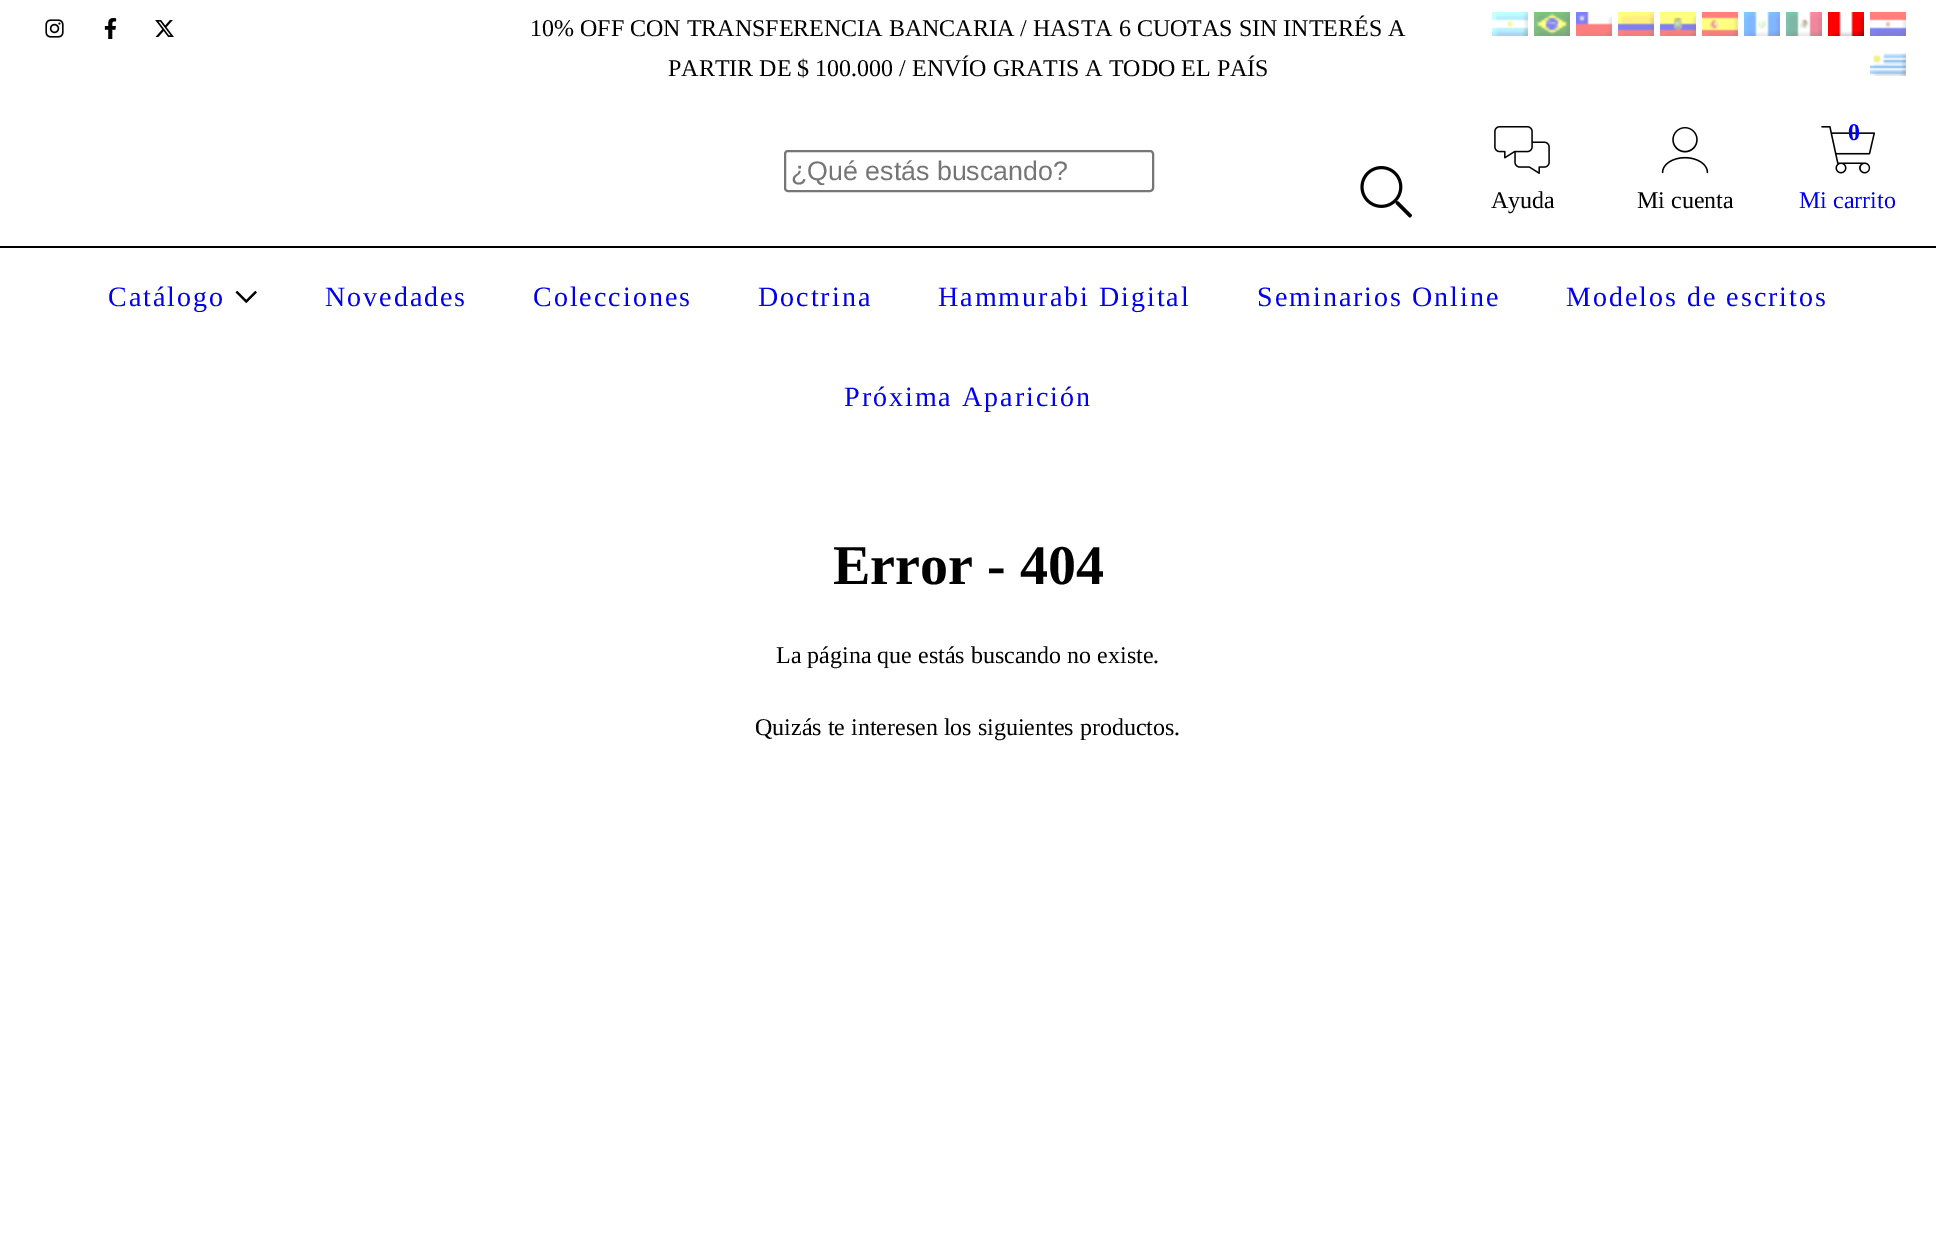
%!PS
<< /PageSize [1936 1258] >> setpagedevice
/rgb { 3 { 255 div 3 1 roll } repeat setrgbcolor } def
/font { [ exch dup neg 0 0 3 -1 roll 0 0 ] selectfont } def
/text { moveto show } def
/roundrect { 5 dict begin { /r /h /w /y /x } { exch def } forall
  x r add y moveto x w add y 2 copy h add r arct x w add y h add x 1 index r arct
  x y h add x y r arct x y 2 copy exch w add exch r arct closepath end } def
/picture { 5 dict begin { /h /w /y /x /name } { exch def } forall
  gsave x y translate w h scale
  w h 8 [w 0 0 h 0 0] name (r) file false 3 colorimage grestore end } def
0 1258 translate 1 -1 scale
4 setmiterlimit
255 255 255 rgb
0 0 1936 1258 rectfill
(img_01.rgb) 45 19 19 19 picture
(img_02.rgb) 104 18 13 21 picture
(img_03.rgb) 155 20 19 17 picture
(img_04.rgb) 1492 12 36 24 picture
(img_05.rgb) 1534 12 36 24 picture
(img_06.rgb) 1576 12 36 24 picture
(img_07.rgb) 1618 12 36 24 picture
(img_08.rgb) 1660 12 36 24 picture
(img_09.rgb) 1702 12 36 24 picture
(img_10.rgb) 1744 12 36 24 picture
(img_11.rgb) 1786 12 36 24 picture
(img_12.rgb) 1828 12 36 24 picture
(img_13.rgb) 1870 12 36 24 picture
(img_14.rgb) 1870 53 36 23 picture
118 118 118 rgb
2 setlinewidth
785 151 368 40 3 roundrect stroke
(img_15.rgb) 1360 166 52 52 picture
(img_16.rgb) 1494 126 56 48 picture
(img_17.rgb) 1661 127 48 47 picture
(img_18.rgb) 1821 126 54 48 picture
0 0 0 rgb
0 246 1936 2 rectfill
(img_19.rgb) 235 290 22 13 picture
/LiberationSerif-Regular 24 font
(10% OFF CON TRANSFERENCIA BANCARIA / HASTA 6 CUOTAS SIN INTERÉS A) 530 36 text
(PARTIR DE $ 100.000 / ENVÍO GRATIS A TODO EL PAÍS) 668 76 text
/LiberationSans-Regular 26.75 font
117 117 117 rgb
(¿Qué estás buscando?) 791 180 text
/LiberationSerif-Regular 24 font
0 0 0 rgb
(Ayuda) 1491 208 text
(Mi cuenta) 1637 208 text
/LiberationSerif-Bold 24 font
0 0 238 rgb
(0) 1848 140 text
/LiberationSerif-Regular 24 font
(Mi carrito) 1799 208 text
/LiberationSerif-Regular 28 font
108 306 moveto 2 0 (Catálogo) ashow
325 306 moveto 2 0 (Novedades) ashow
533 306 moveto 2 0 (Colecciones) ashow
758 306 moveto 2 0 (Doctrina) ashow
938 306 moveto 2 0 (Hammurabi Digital) ashow
1257 306 moveto 2 0 (Seminarios Online) ashow
1566 306 moveto 2 0 (Modelos de escritos) ashow
844 406 moveto 2 0 (Próxima Aparición) ashow
/LiberationSerif-Bold 56 font
0 0 0 rgb
(Error - 404) 833 584 text
/LiberationSerif-Regular 24 font
(La página que estás buscando no existe.) 776 663 text
(Quizás te interesen los siguientes productos.) 755 735 text
showpage
